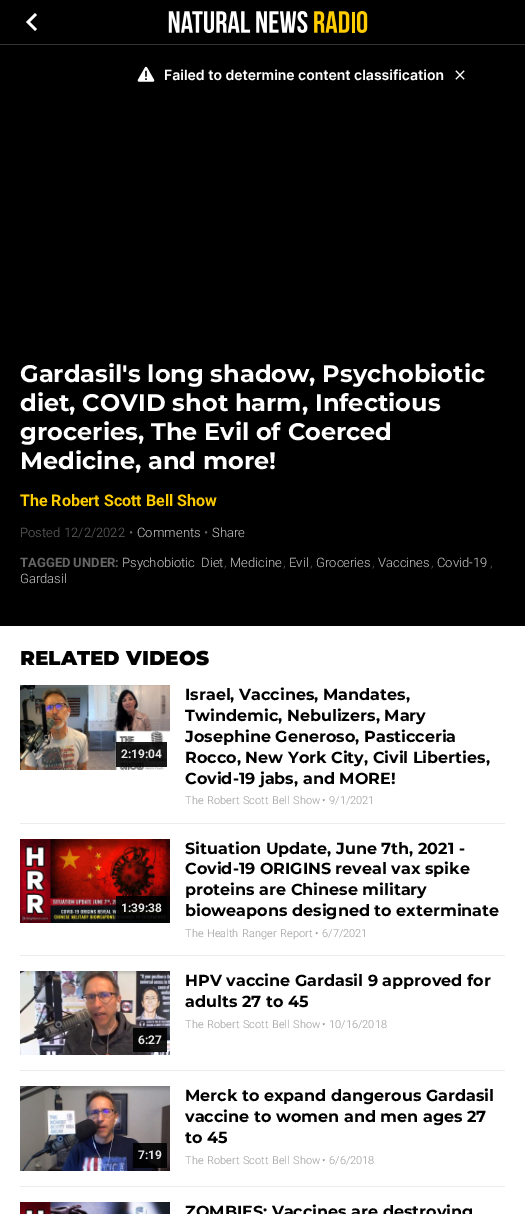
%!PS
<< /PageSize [525 1214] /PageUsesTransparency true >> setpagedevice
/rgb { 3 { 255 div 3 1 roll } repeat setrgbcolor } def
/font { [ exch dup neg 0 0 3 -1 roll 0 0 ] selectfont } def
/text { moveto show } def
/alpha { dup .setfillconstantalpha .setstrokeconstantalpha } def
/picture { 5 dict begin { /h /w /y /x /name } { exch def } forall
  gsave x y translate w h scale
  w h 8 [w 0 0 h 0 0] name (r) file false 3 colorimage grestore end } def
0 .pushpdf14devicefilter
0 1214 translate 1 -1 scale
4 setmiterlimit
0 0 0 rgb
0 0 525 1214 rectfill
51 51 51 rgb
0 44 525 1 rectfill
255 255 255 rgb
30 22 moveto 7 -7 rlineto -2 -2 rlineto -9 9 rlineto 9 9 rlineto 2 -2 rlineto closepath fill
(img_01.rgb) 168 11 200 22 picture
(img_02.rgb) 137 66 328 16 picture
0 626 525 588 rectfill
236 236 236 rgb
20 823 485 1 rectfill
(img_03.rgb) 20 685 150 85 picture
0.9 alpha
0 0 0 rgb
116 742 51 25 rectfill
1 alpha
236 236 236 rgb
20 955 485 1 rectfill
(img_04.rgb) 20 839 150 84 picture
0.9 alpha
0 0 0 rgb
116 896 51 24 rectfill
1 alpha
236 236 236 rgb
20 1070 485 1 rectfill
(img_05.rgb) 20 971 150 84 picture
0.9 alpha
0 0 0 rgb
133 1028 34 24 rectfill
1 alpha
236 236 236 rgb
20 1186 485 1 rectfill
(img_06.rgb) 20 1086 150 85 picture
0.9 alpha
0 0 0 rgb
133 1143 34 25 rectfill
1 alpha
(img_07.rgb) 20 1202 150 12 picture
/Montserrat-Bold 24 font
255 255 255 rgb
(Gardasil's long shadow, Psychobiotic) 20 382 text
(diet, COVID shot harm, Infectious) 20 411 text
(groceries, The Evil of Coerced) 20 440 text
(Medicine, and more!) 20 469 text
/Roboto-Bold 16 font
255 204 0 rgb
(The Robert Scott Bell Show) 20 506 text
/Roboto-Light 13 font
102 102 102 rgb
(Posted) 20 537 text
64 537 moveto 1 0 32 (12/2/2022 •) widthshow
204 204 204 rgb
(Comments) 137 537 text
102 102 102 rgb
(•) 204 537 text
204 204 204 rgb
(Share) 212 537 text
/Roboto-Bold 13 font
102 102 102 rgb
(TAGGED UNDER:) 20 567 text
/Roboto-Light 13 font
204 204 204 rgb
122 567 moveto 3 0 32 (Psychobiotic Diet) widthshow
102 102 102 rgb
(,) 224 567 text
204 204 204 rgb
(Medicine) 230 567 text
102 102 102 rgb
(,) 283 567 text
204 204 204 rgb
(Evil) 289 567 text
102 102 102 rgb
(,) 310 567 text
204 204 204 rgb
(Groceries) 316 567 text
102 102 102 rgb
(,) 372 567 text
204 204 204 rgb
(Vaccines) 378 567 text
102 102 102 rgb
(,) 431 567 text
204 204 204 rgb
(Covid-19) 437 567 text
102 102 102 rgb
(,) 490 567 text
204 204 204 rgb
(Gardasil) 20 583 text
/Montserrat-Black 20 font
0 0 0 rgb
(RELATED VIDEOS) 20 665 text
/Roboto-Bold 12 font
231 231 231 rgb
(2:19:04) 121 758 text
/Montserrat-Bold 16 font
0 0 0 rgb
(Israel, Vaccines, Mandates,) 185 700 text
(Twindemic, Nebulizers, Mary) 185 721 text
(Josephine Generoso, Pasticceria) 185 742 text
(Rocco, New York City, Civil Liberties,) 185 763 text
(Covid-19 jabs, and MORE!) 185 784 text
/Roboto-Light 11 font
153 153 153 rgb
185 804 moveto 1 0 32 (The Robert Scott Bell Show) widthshow
322 804 moveto 1 0 32 (• 9/1/2021) widthshow
/Roboto-Bold 12 font
231 231 231 rgb
(1:39:38) 121 912 text
/Montserrat-Bold 16 font
0 0 0 rgb
(Situation Update, June 7th, 2021 -) 185 854 text
(Covid-19 ORIGINS reveal vax spike) 185 874 text
(proteins are Chinese military) 185 895 text
(bioweapons designed to exterminate) 185 916 text
/Roboto-Light 11 font
153 153 153 rgb
185 937 moveto 1 0 32 (The Health Ranger Report) widthshow
315 937 moveto 1 0 32 (• 6/7/2021) widthshow
/Montserrat-Bold 16 font
0 0 0 rgb
(HPV vaccine Gardasil 9 approved for) 185 986 text
(adults 27 to 45) 185 1007 text
/Roboto-Light 11 font
153 153 153 rgb
185 1028 moveto 1 0 32 (The Robert Scott Bell Show) widthshow
322 1028 moveto 1 0 32 (• 10/16/2018) widthshow
/Roboto-Bold 12 font
231 231 231 rgb
(6:27) 138 1044 text
(7:19) 138 1159 text
/Montserrat-Bold 16 font
0 0 0 rgb
(Merck to expand dangerous Gardasil) 185 1101 text
(vaccine to women and men ages 27) 185 1122 text
(to 45) 185 1143 text
/Roboto-Light 11 font
153 153 153 rgb
185 1164 moveto 1 0 32 (The Robert Scott Bell Show) widthshow
322 1164 moveto 1 0 32 (• 6/6/2018) widthshow
/Montserrat-Bold 16 font
0 0 0 rgb
(ZOMBIES: Vaccines are destroying) 185 1217 text
.poppdf14devicefilter showpage
